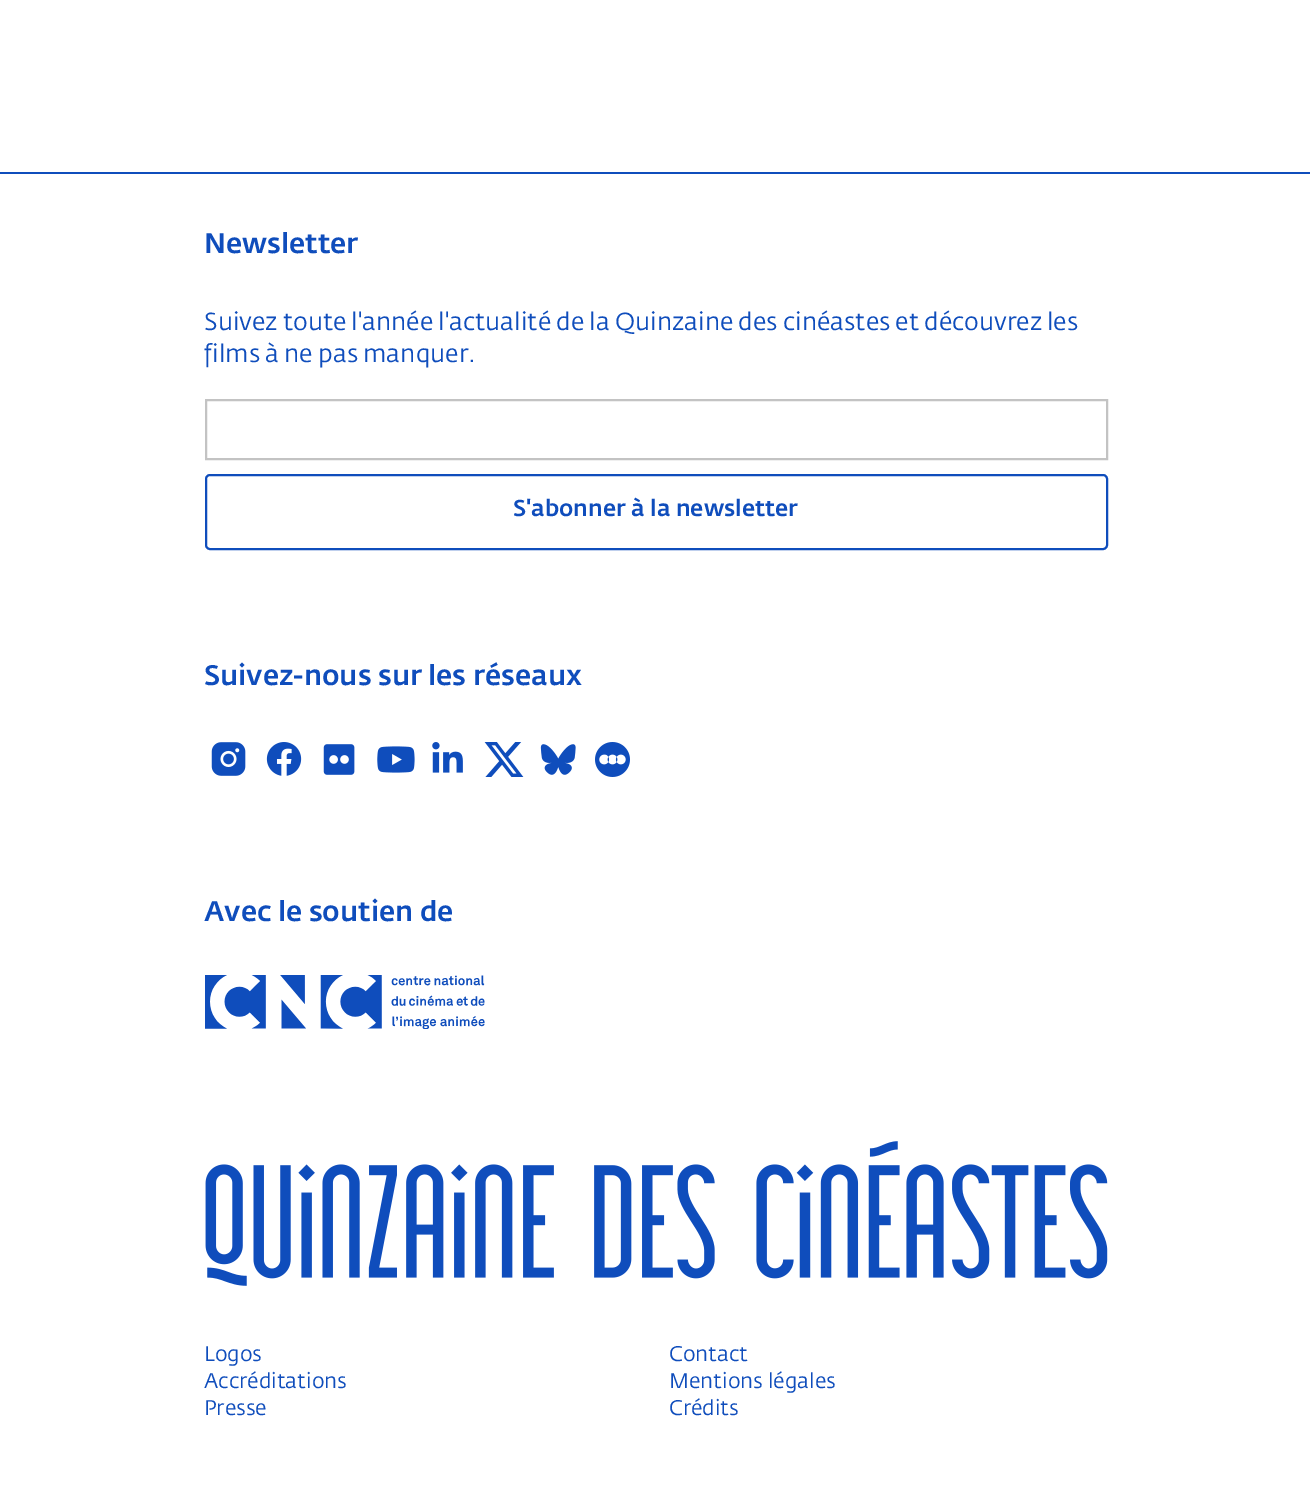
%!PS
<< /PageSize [1310 1508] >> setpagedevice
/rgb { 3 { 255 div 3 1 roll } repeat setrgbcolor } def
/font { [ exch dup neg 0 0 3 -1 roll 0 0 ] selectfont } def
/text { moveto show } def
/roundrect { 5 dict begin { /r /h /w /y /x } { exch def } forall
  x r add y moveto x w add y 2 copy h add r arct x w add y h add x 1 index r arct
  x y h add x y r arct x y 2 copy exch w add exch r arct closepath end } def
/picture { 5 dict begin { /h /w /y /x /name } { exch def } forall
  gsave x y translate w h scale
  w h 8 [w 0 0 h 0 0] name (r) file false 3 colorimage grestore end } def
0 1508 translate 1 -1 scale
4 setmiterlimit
255 255 255 rgb
0 0 1310 1508 rectfill
15 77 188 rgb
0 172 1310 2 rectfill
195 195 195 rgb
2 setlinewidth
206 400 901 59 rectstroke
15 77 188 rgb
206 475 901 74 4 roundrect stroke
(img_01.rgb) 211 742 35 34 picture
(img_02.rgb) 266 742 36 34 picture
(img_03.rgb) 323 744 32 31 picture
(img_04.rgb) 377 746 38 27 picture
(img_05.rgb) 432 742 31 31 picture
(img_06.rgb) 484 742 40 35 picture
(img_07.rgb) 540 744 36 31 picture
(img_08.rgb) 595 742 35 35 picture
(img_09.rgb) 205 975 280 54 picture
(img_10.rgb) 205 1141 903 145 picture
/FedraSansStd-Medium 28 font
(Newsletter) 204 253 text
/FedraSansStd-Regular 24.5 font
(Suivez toute l'année l'actualité de la Quinzaine des cinéastes et découvrez les) 204 330 text
(films à ne pas manquer.) 204 362 text
/FedraSansStd-Medium 22.75 font
(S'abonner à la newsletter) 513 516 text
/FedraSansStd-Medium 28 font
(Suivez-nous sur les réseaux) 204 685 text
(Avec le soutien de) 204 921 text
/FedraSansStd-Regular 21 font
(Logos) 204 1361 text
(Contact) 669 1361 text
(Accréditations) 204 1388 text
(Mentions légales) 669 1388 text
(Presse) 204 1415 text
(Crédits) 669 1415 text
showpage
